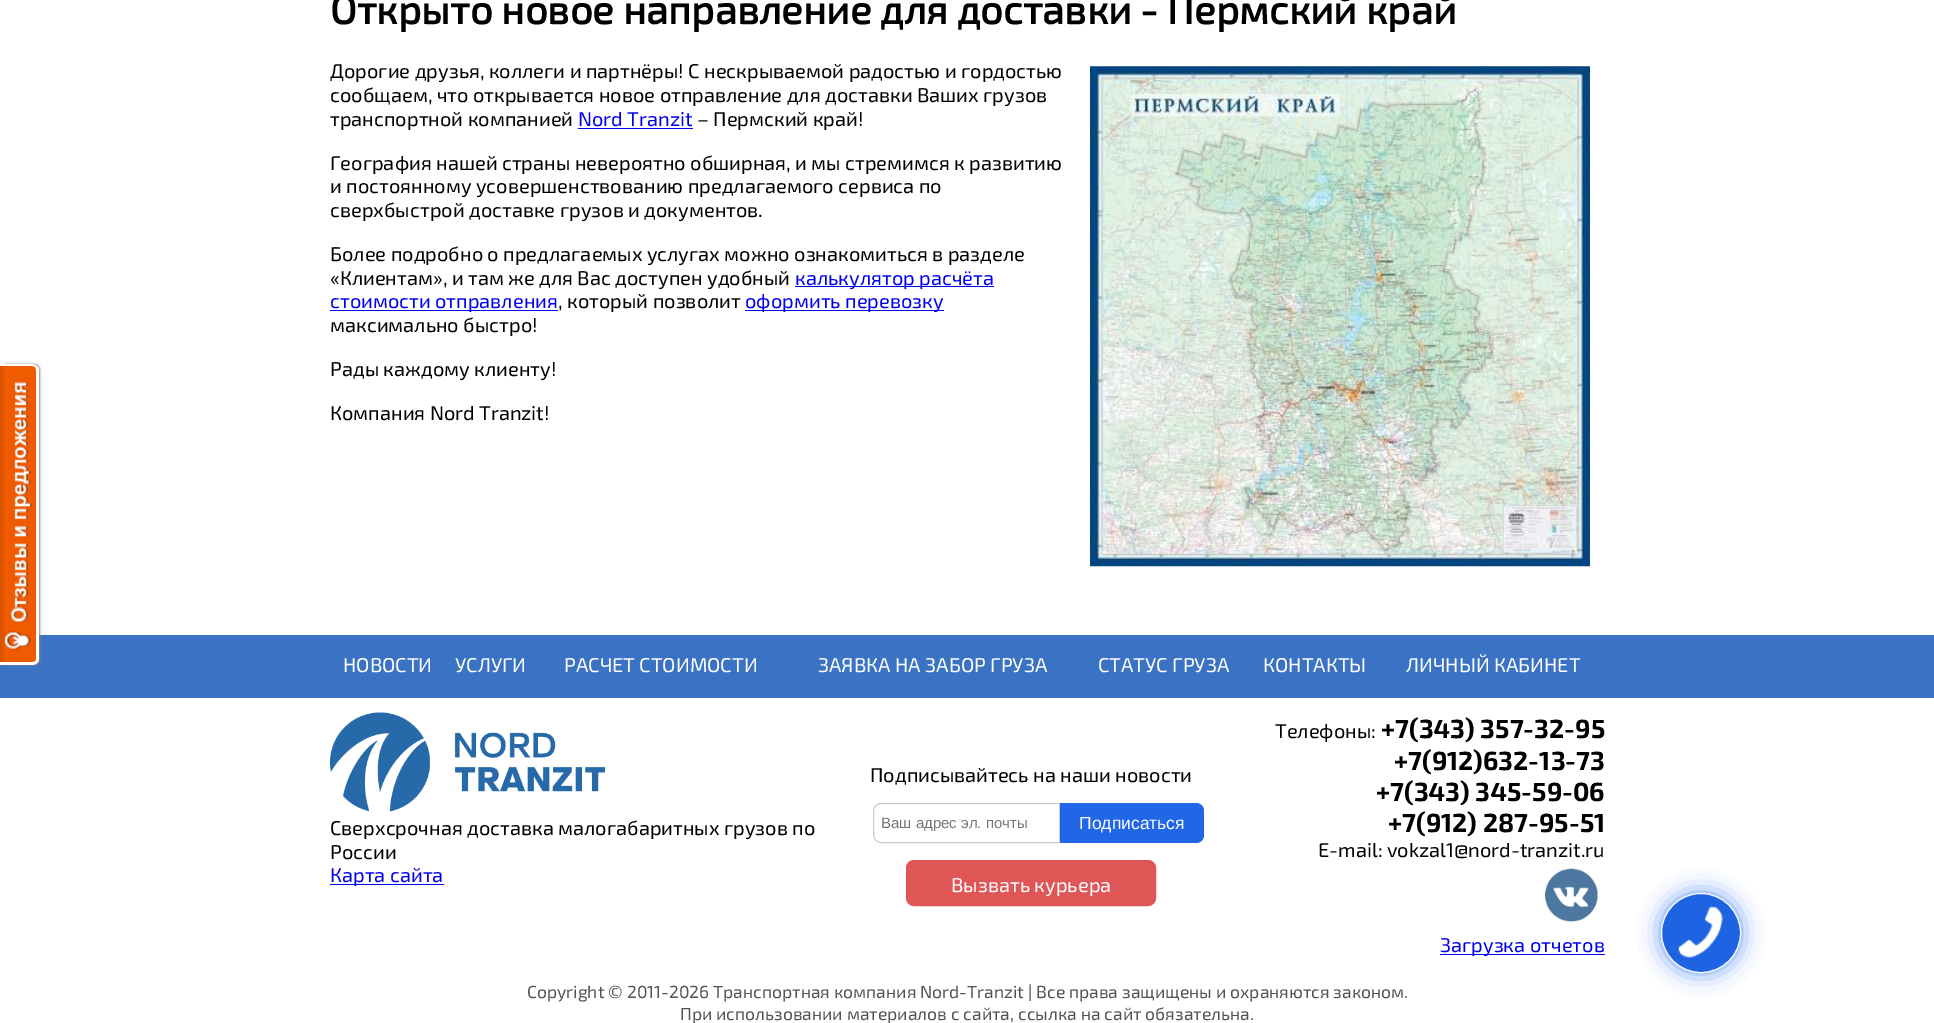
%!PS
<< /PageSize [1934 1023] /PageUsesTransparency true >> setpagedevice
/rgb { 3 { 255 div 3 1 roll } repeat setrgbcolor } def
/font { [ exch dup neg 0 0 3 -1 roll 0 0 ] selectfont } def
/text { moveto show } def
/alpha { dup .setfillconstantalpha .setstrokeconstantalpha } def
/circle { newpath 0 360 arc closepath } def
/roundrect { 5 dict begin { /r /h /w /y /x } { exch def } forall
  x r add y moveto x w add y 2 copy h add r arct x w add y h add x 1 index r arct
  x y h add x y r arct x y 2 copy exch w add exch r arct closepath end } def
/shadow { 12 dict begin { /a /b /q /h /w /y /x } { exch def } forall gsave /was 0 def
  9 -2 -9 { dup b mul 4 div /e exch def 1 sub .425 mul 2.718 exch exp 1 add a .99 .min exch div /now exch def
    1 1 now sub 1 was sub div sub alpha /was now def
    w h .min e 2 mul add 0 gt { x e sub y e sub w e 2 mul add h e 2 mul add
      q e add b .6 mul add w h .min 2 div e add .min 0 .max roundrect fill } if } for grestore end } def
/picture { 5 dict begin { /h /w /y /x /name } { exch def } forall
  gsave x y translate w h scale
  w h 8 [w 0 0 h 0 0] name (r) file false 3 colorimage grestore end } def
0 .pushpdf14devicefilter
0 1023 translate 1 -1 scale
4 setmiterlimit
255 255 255 rgb
0 0 1934 1023 rectfill
59 115 196 rgb
0 635 1934 63 rectfill
136 136 136 rgb
1 364 39 301 6 1 1 shadow
240 90 0 rgb
0 364 moveto 33 0 rlineto 3.5 0 6 2.5 6 6 rcurveto 0 289 rlineto 0 3.5 -2.5 6 -6 6 rcurveto -33 0 rlineto closepath fill
(img_01.rgb) 0 363 5 299 picture
255 255 255 rgb
0 364 moveto 32 0 rlineto 4 0 7 3 7 6 rcurveto 0 289 rlineto 0 3 -3 6 -7 6 rcurveto -32 0 rlineto closepath 0 366 moveto 32 0 rlineto 3 0 4 2 4 4 rcurveto 0 289 rlineto 0 2 -1 3 -4 3 rcurveto -32 0 rlineto closepath eofill
(img_02.rgb) 5 382 27 268 picture
0 0 238 rgb
578 128 115 1 rectfill
(img_03.rgb) 1090 66 500 501 picture
795 286 199 1 rectfill
330 310 228 1 rectfill
745 310 199 1 rectfill
(img_04.rgb) 330 712 275 100 picture
330 884 114 1 rectfill
204 204 204 rgb
881 803.5 moveto 178.5 0 rlineto 0 39 rlineto -178.5 0 rlineto -4 0 -7.5 -3.5 -7.5 -7.5 rcurveto 0 -24 rlineto 0 -4 3.5 -7.5 7.5 -7.5 rcurveto closepath stroke
32 102 230 rgb
1060 803 moveto 136 0 rlineto 4.5 0 8 3.5 8 8 rcurveto 0 24 rlineto 0 4.5 -3.5 8 -8 8 rcurveto -136 0 rlineto closepath fill
224 85 85 rgb
906.5 860.5 249 45 7.5 roundrect gsave fill grestore
stroke
(img_05.rgb) 1545 868 53 54 picture
0 0 238 rgb
1440 954 165 1 rectfill
61 125 242 rgb
1661 893 80 80 40 11 0.8 shadow
30 99 226 rgb
1701 933 39.5 circle gsave fill grestore
255 255 255 rgb
stroke
(img_06.rgb) 1678 906 45 52 picture
/Exo2-Bold 40 font
0 0 0 rgb
(Открыто новое направление для доставки - Пермский край) 330 24 text
/Exo2-Regular 20 font
(Дорогие друзья, коллеги и партнёры! С нескрываемой радостью и гордостью) 330 78 text
(сообщаем, что открывается новое отправление для доставки Ваших грузов) 330 102 text
(транспортной компанией) 330 126 text
0 0 238 rgb
(Nord Tranzit) 578 126 text
0 0 0 rgb
(– Пермский край!) 697 126 text
(География нашей страны невероятно обширная, и мы стремимся к развитию) 330 170 text
(и постоянному усовершенствованию предлагаемого сервиса по) 330 193 text
(сверхбыстрой доставке грузов и документов.) 330 217 text
(Более подробно о предлагаемых услугах можно ознакомиться в разделе) 330 261 text
(«Клиентам», и там же для Вас доступен удобный) 330 285 text
0 0 238 rgb
(калькулятор расчёта) 795 285 text
(стоимости отправления) 330 308 text
0 0 0 rgb
(, который позволит) 558 308 text
0 0 238 rgb
(оформить перевозку) 745 308 text
0 0 0 rgb
(максимально быстро!) 330 332 text
(Рады каждому клиенту!) 330 376 text
(Компания Nord Tranzit!) 330 420 text
255 255 255 rgb
(НОВОСТИ) 343 672 text
(УСЛУГИ) 455 672 text
(РАСЧЕТ СТОИМОСТИ) 564 672 text
(ЗАЯВКА НА ЗАБОР ГРУЗА) 818 672 text
(СТАТУС ГРУЗА) 1098 672 text
(КОНТАКТЫ) 1263 672 text
(ЛИЧНЫЙ КАБИНЕТ) 1406 672 text
0 0 0 rgb
(Сверхcрочная доставка малогабаритных грузов по) 330 835 text
(России) 330 859 text
0 0 238 rgb
(Карта сайта) 330 882 text
0 0 0 rgb
(Подписывайтесь на наши новости) 870 782 text
/LiberationSans-Regular 15 font
117 117 117 rgb
(Ваш адрес эл. почты) 881 828 text
/LiberationSans-Regular 17.5 font
255 255 255 rgb
(Подписаться) 1079 829 text
/Exo2-Regular 20 font
(Вызвать курьера) 951 892 text
0 0 0 rgb
(Телефоны:) 1275 738 text
/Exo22-Bold 26.25 font
(+7\(343\) 357-32-95) 1381 738 text
(+7\(912\)632-13-73) 1394 770 text
(+7\(343\) 345-59-06) 1376 801 text
(+7\(912\) 287-95-51) 1388 832 text
/Exo2-Regular 20 font
(E-mail: vokzal1@nord-tranzit.ru) 1318 857 text
0 0 238 rgb
(Загрузка отчетов) 1440 952 text
/Exo2-Regular 17.5 font
83 83 83 rgb
(Copyright © 2011-2026 Транспортная компания Nord-Tranzit | Все права защищены и охраняются законом.) 527 998 text
(При использовании материалов с сайта, ссылка на сайт обязательна.) 680 1020 text
.poppdf14devicefilter showpage
